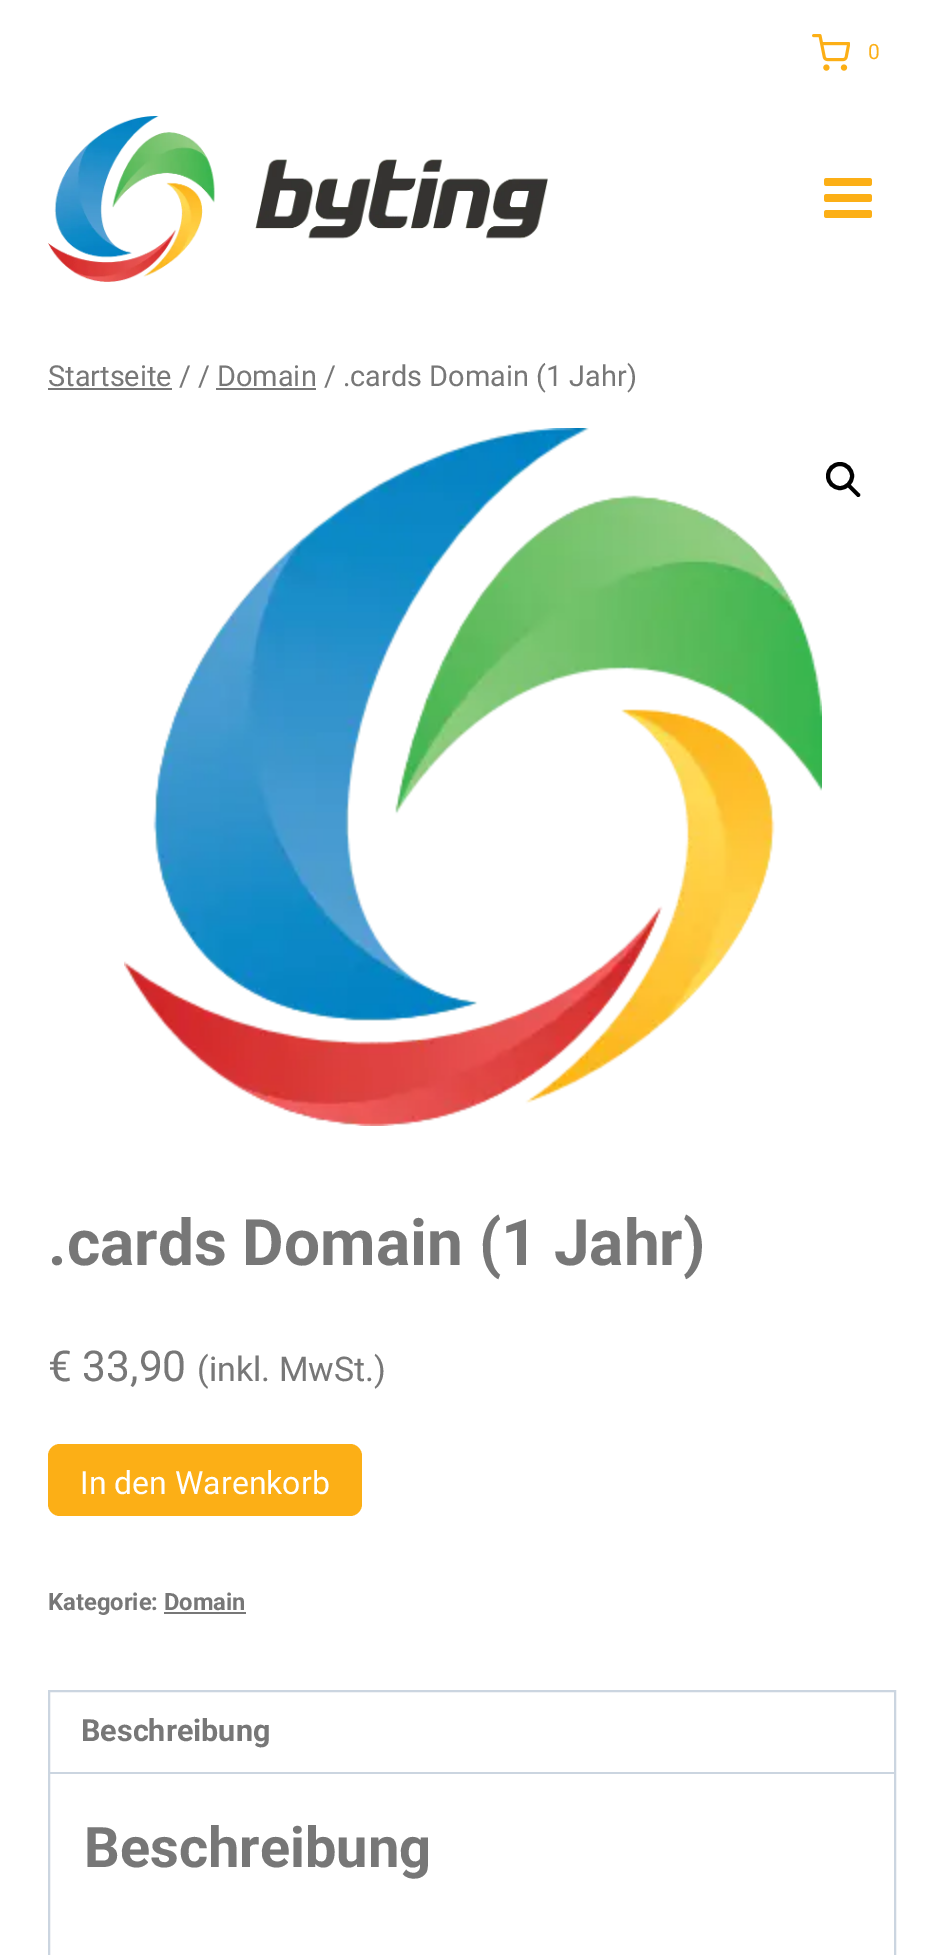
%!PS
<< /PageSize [944 1955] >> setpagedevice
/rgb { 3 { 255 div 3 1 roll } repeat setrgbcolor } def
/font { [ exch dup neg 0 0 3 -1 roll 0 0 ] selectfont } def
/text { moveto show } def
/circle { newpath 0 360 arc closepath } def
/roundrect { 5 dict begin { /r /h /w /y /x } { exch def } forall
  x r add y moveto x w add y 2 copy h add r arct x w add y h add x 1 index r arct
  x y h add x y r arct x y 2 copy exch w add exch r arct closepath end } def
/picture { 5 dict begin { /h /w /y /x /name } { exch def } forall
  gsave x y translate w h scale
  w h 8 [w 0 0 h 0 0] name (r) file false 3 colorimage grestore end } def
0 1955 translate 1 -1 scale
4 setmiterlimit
255 255 255 rgb
0 0 944 1955 rectfill
(img_01.rgb) 812 34 38 37 picture
(img_02.rgb) 48 116 500 166 picture
(img_03.rgb) 824 178 48 40 picture
119 119 119 rgb
48 388 124 2 rectfill
216 388 100 2 rectfill
(img_04.rgb) 124 428 698 698 picture
0 0 0 rgb
4 setlinewidth
840 476 12 circle stroke
848.5 485 moveto 0.5 -1 2 -1 2.5 0 rcurveto 8.5 8.5 rlineto 1 0.5 1 2 0 3 rcurveto -0.5 0.5 -2 0.5 -2.5 0 rcurveto -8.5 -8.5 rlineto -1 -1 -1 -2.5 0 -3 rcurveto closepath fill
252 175 22 rgb
48 1444 314 72 12 roundrect fill
119 119 119 rgb
164 1612 82 2 rectfill
203 213 224 rgb
2 setlinewidth
49 1691 846 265 rectstroke
50 1772 844 2 rectfill
/Roboto-Regular 21 font
252 175 22 rgb
(0) 868 59 text
/Roboto-Regular 28.9 font
119 119 119 rgb
(Startseite / / Domain / .cards Domain \(1 Jahr\)) 48 386 text
/Roboto-Bold 64 font
(.cards Domain \(1 Jahr\)) 48 1265 text
/Roboto-Regular 42.5 font
(€ 33,90) 48 1381 text
/Roboto-Regular 34 font
(\(inkl. MwSt.\)) 197 1381 text
/Roboto-Regular 32 font
255 255 255 rgb
(In den Warenkorb) 80 1494 text
/Roboto-Bold 23.75 font
119 119 119 rgb
(Kategorie: Domain) 48 1610 text
/Roboto-Bold 30.5 font
(Beschreibung) 81 1741 text
/Roboto-Bold 56 font
(Beschreibung) 84 1867 text
showpage
